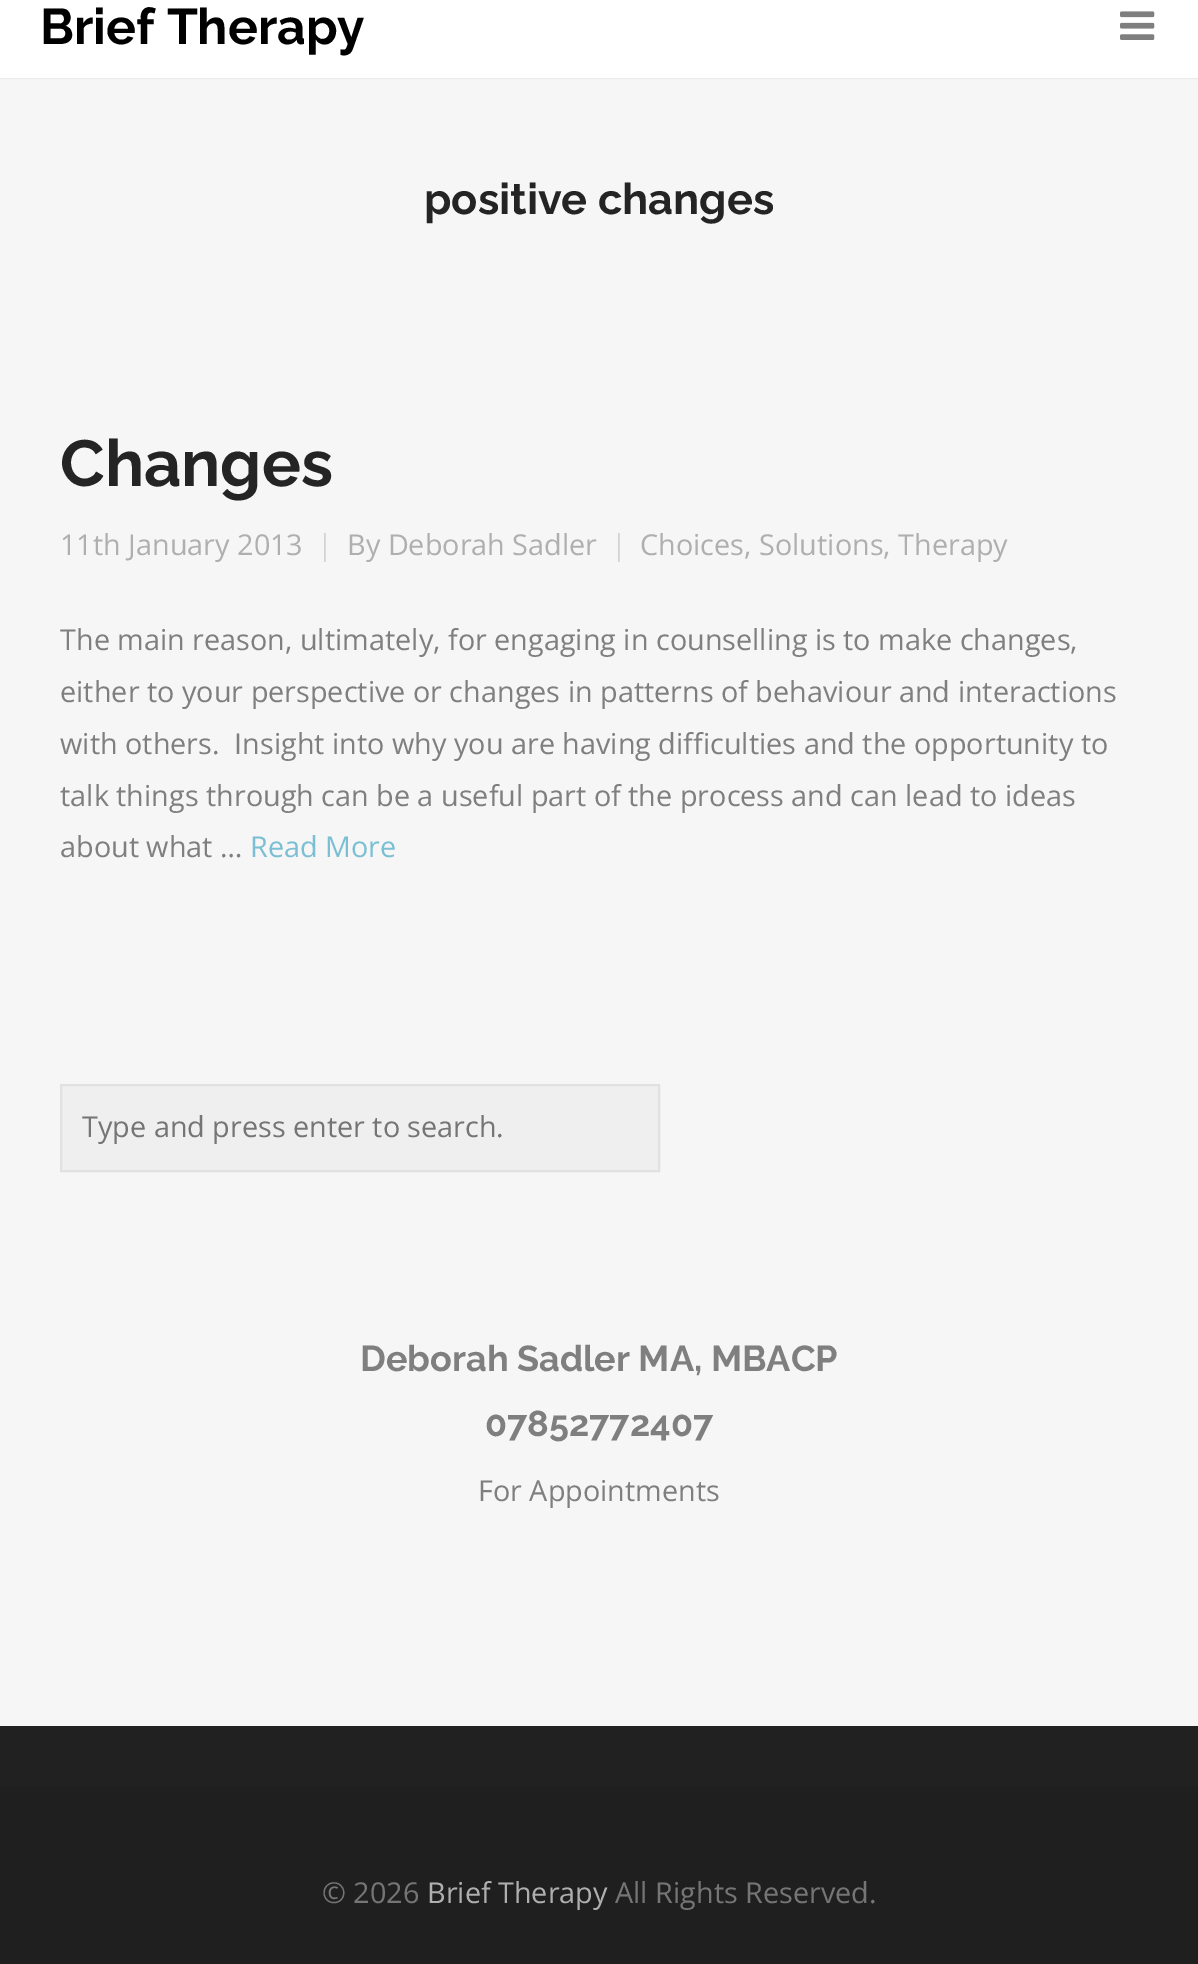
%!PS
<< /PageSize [1198 1964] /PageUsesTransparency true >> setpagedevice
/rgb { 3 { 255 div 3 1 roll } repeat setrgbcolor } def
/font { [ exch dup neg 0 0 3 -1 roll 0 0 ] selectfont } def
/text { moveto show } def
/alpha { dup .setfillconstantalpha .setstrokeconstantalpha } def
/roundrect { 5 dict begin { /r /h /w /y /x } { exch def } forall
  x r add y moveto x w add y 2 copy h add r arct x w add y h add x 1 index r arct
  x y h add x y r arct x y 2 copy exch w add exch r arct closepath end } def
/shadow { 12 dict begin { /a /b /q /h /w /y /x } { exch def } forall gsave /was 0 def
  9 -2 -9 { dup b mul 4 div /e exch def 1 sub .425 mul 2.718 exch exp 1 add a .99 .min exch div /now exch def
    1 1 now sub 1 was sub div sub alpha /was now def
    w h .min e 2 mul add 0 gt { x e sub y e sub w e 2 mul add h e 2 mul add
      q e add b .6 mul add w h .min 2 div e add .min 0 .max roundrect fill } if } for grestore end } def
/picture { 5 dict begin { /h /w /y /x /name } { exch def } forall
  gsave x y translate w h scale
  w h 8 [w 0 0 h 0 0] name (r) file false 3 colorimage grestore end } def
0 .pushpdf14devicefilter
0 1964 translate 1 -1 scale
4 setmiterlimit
246 246 246 rgb
0 0 1198 1964 rectfill
0 0 0 rgb
0 -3 1198 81 0 1 0.15 shadow
255 255 255 rgb
0 0 1198 78 rectfill
(img_01.rgb) 1120 11 35 29 picture
239 239 239 rgb
61 1085 moveto 598 0 rlineto 0 86 rlineto -598 0 rlineto closepath gsave fill grestore
225 225 225 rgb
2 setlinewidth
stroke
33 33 33 rgb
0 1726 1198 60 rectfill
31 31 31 rgb
0 1786 1198 178 rectfill
/Raleway-Bold 50 font
0 0 0 rgb
(Brief Therapy) 40 44 text
/Raleway-Bold 43.25 font
36 36 36 rgb
(positive changes) 424 214 text
/Raleway-Bold 65 font
(Changes) 60 486 text
/OpenSans-Regular 28.8 font
175 175 175 rgb
(11th January 2013) 60 555 text
210 210 210 rgb
(|) 317 555 text
175 175 175 rgb
(By Deborah Sadler) 347 555 text
210 210 210 rgb
(|) 611 555 text
175 175 175 rgb
(Choices, Solutions, Therapy) 640 555 text
127 127 127 rgb
(The main reason, ultimately, for engaging in counselling is to make changes,) 60 650 text
(either to your perspective or changes in patterns of behaviour and interactions) 60 702 text
(with others.  Insight into why you are having difficulties and the opportunity to) 60 754 text
(talk things through can be a useful part of the process and can lead to ideas) 60 806 text
(about what …) 60 857 text
122 191 211 rgb
(Read More) 250 857 text
117 117 117 rgb
(Type and press enter to search.) 82 1137 text
/Raleway-Bold 36 font
127 127 127 rgb
(Deborah Sadler MA, MBACP) 360 1371 text
(07852772407) 485 1436 text
/OpenSans-Regular 28.8 font
(For Appointments) 478 1501 text
117 117 117 rgb
(© 2026) 322 1903 text
175 175 175 rgb
(Brief Therapy) 427 1903 text
117 117 117 rgb
(All Rights Reserved.) 615 1903 text
.poppdf14devicefilter showpage
